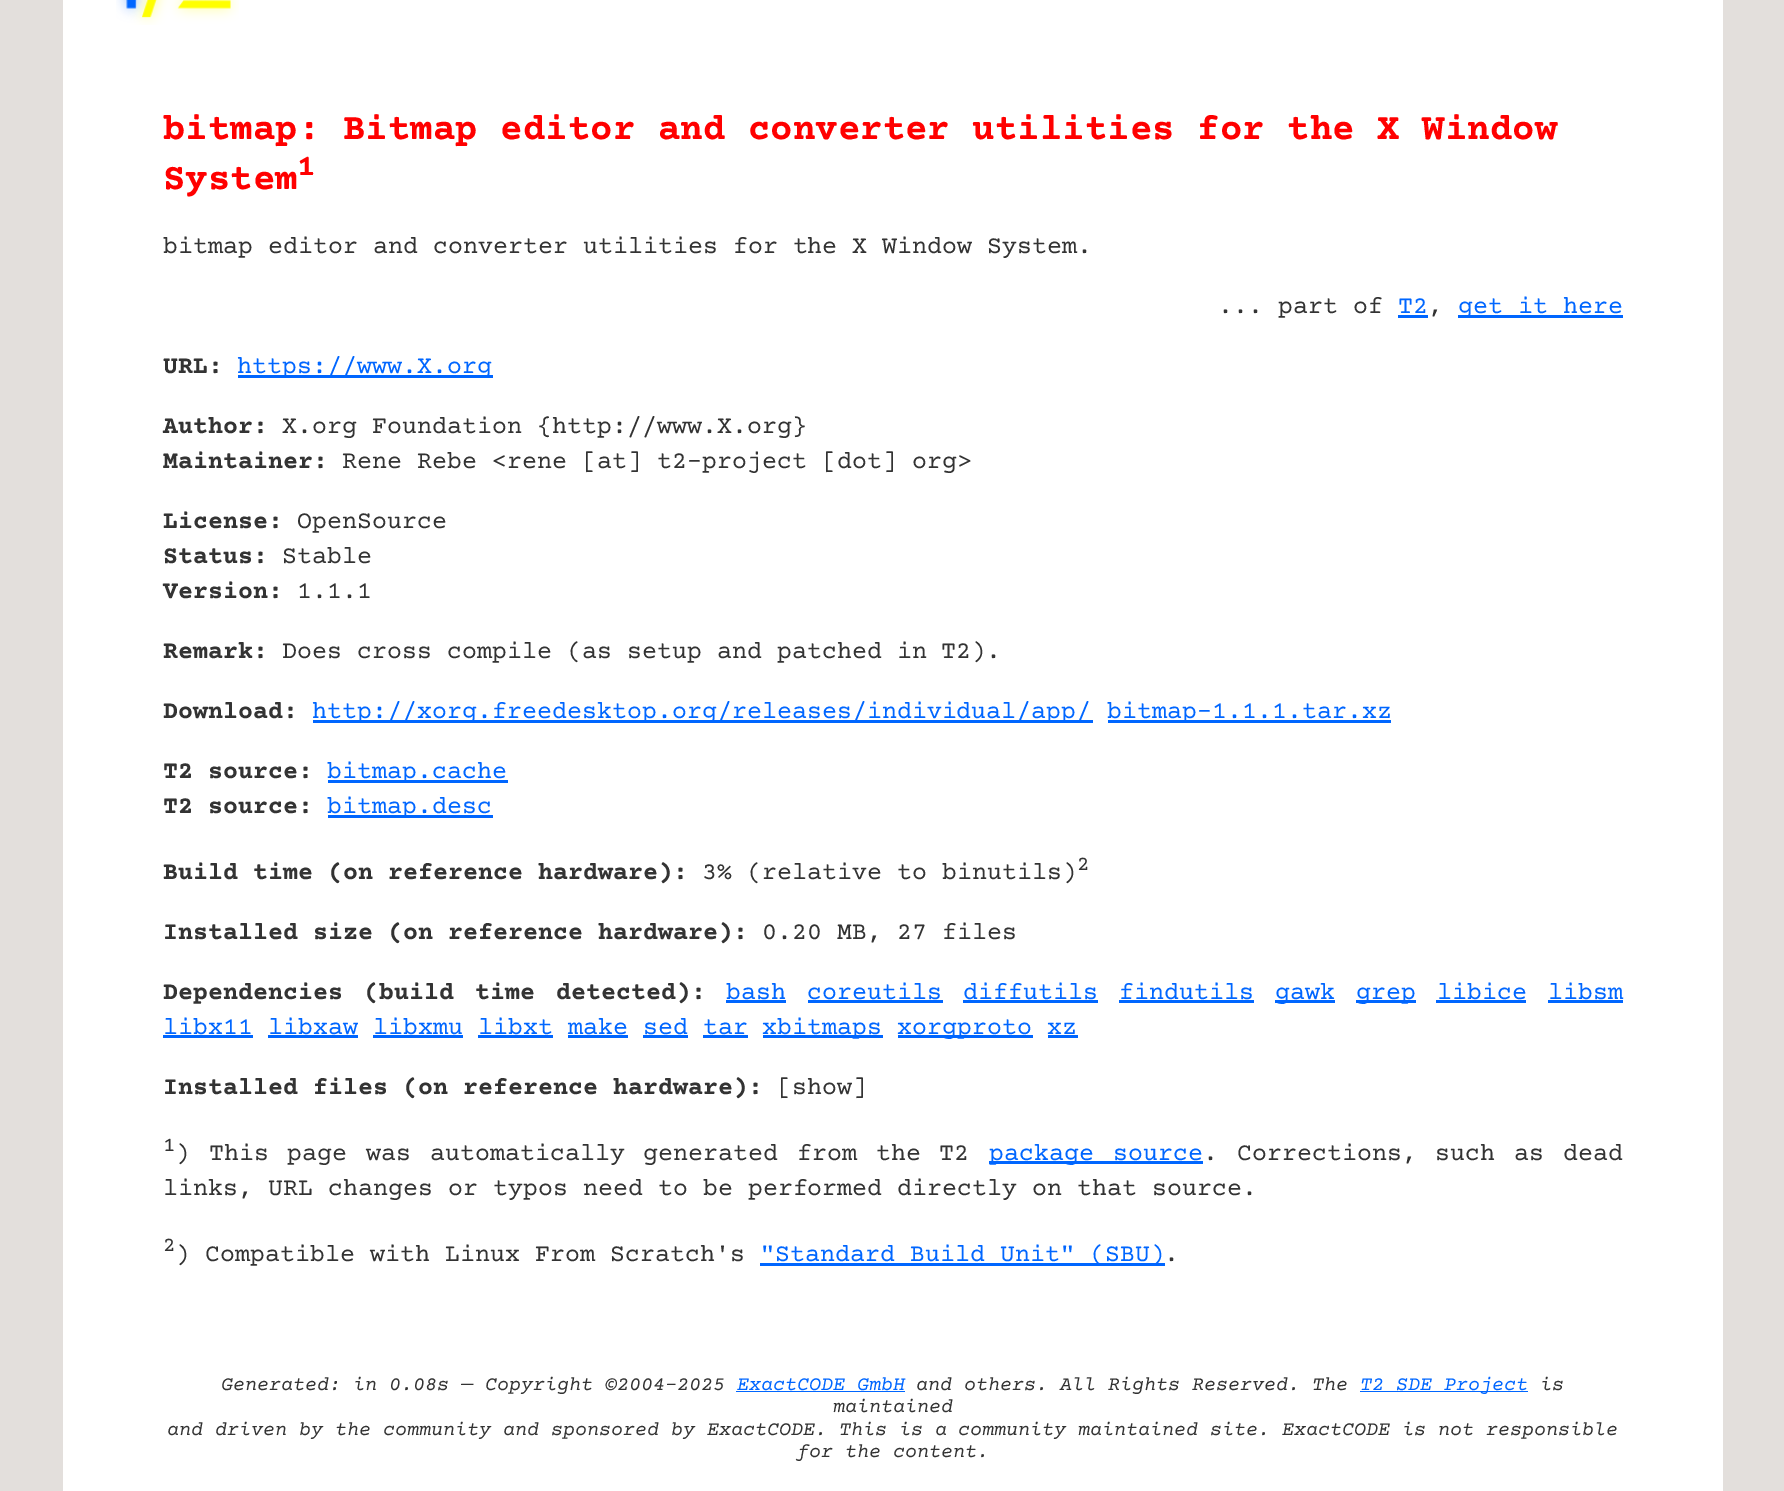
%!PS
<< /PageSize [1784 1491] >> setpagedevice
/rgb { 3 { 255 div 3 1 roll } repeat setrgbcolor } def
/font { [ exch dup neg 0 0 3 -1 roll 0 0 ] selectfont } def
/text { moveto show } def
/picture { 5 dict begin { /h /w /y /x /name } { exch def } forall
  gsave x y translate w h scale
  w h 8 [w 0 0 h 0 0] name (r) file false 3 colorimage grestore end } def
0 1491 translate 1 -1 scale
4 setmiterlimit
227 223 220 rgb
0 0 1784 1491 rectfill
255 255 255 rgb
63 0 1660 1491 rectfill
(img_01.rgb) 116 0 123 25 picture
0 102 255 rgb
1398 315 30 3 rectfill
1458 315 165 3 rectfill
238 375 255 3 rectfill
313 720 780 3 rectfill
1108 720 283 3 rectfill
328 780 180 3 rectfill
328 815 165 3 rectfill
726 1000 60 3 rectfill
808 1000 135 3 rectfill
963 1000 135 3 rectfill
1119 1000 135 3 rectfill
1275 1000 60 3 rectfill
1356 1000 60 3 rectfill
1436 1000 90 3 rectfill
1548 1000 75 3 rectfill
163 1035 90 3 rectfill
763 1035 120 3 rectfill
898 1035 135 3 rectfill
268 1035 90 3 rectfill
373 1035 90 3 rectfill
478 1035 75 3 rectfill
568 1035 60 3 rectfill
643 1035 45 3 rectfill
703 1035 45 3 rectfill
1048 1035 30 3 rectfill
989 1161 214 3 rectfill
760 1263 405 3 rectfill
736 1391 169 1 rectfill
1360 1391 168 1 rectfill
/CourierPrime-Bold 37.5 font
255 0 0 rgb
(bitmap: Bitmap editor and converter utilities for the X Window) 163 139 text
(System) 163 189 text
/CourierPrime-Bold 31 font
(1) 297 175 text
/CourierPrime-Regular 25 font
51 51 51 rgb
(bitmap editor and converter utilities for the X Window System.) 163 253 text
(... part of) 1218 313 text
0 102 255 rgb
(T2) 1398 313 text
51 51 51 rgb
(,) 1428 313 text
0 102 255 rgb
(get it here) 1458 313 text
/CourierPrime-Bold 25 font
51 51 51 rgb
(URL:) 163 373 text
/CourierPrime-Regular 25 font
0 102 255 rgb
(https://www.X.org) 237 373 text
/CourierPrime-Bold 25 font
51 51 51 rgb
(Author:) 163 433 text
/CourierPrime-Regular 25 font
(X.org Foundation {http://www.X.org}) 282 433 text
/CourierPrime-Bold 25 font
(Maintainer:) 163 468 text
/CourierPrime-Regular 25 font
(Rene Rebe <rene [at] t2-project [dot] org>) 342 468 text
/CourierPrime-Bold 25 font
(License:) 163 528 text
/CourierPrime-Regular 25 font
(OpenSource) 297 528 text
/CourierPrime-Bold 25 font
(Status:) 163 563 text
/CourierPrime-Regular 25 font
(Stable) 282 563 text
/CourierPrime-Bold 25 font
(Version:) 163 598 text
/CourierPrime-Regular 25 font
(1.1.1) 297 598 text
/CourierPrime-Bold 25 font
(Remark:) 163 658 text
/CourierPrime-Regular 25 font
(Does cross compile \(as setup and patched in T2\).) 282 658 text
/CourierPrime-Bold 25 font
(Download:) 163 718 text
/CourierPrime-Regular 25 font
0 102 255 rgb
(http://xorg.freedesktop.org/releases/individual/app/) 312 718 text
(bitmap-1.1.1.tar.xz) 1107 718 text
/CourierPrime-Bold 25 font
51 51 51 rgb
(T2 source:) 163 778 text
/CourierPrime-Regular 25 font
0 102 255 rgb
(bitmap.cache) 327 778 text
/CourierPrime-Bold 25 font
51 51 51 rgb
(T2 source:) 163 813 text
/CourierPrime-Regular 25 font
0 102 255 rgb
(bitmap.desc) 327 813 text
/CourierPrime-Bold 25 font
51 51 51 rgb
(Build time \(on reference hardware\):) 163 879 text
/CourierPrime-Regular 25 font
(3% \(relative to binutils\)) 702 879 text
/CourierPrime-Regular 21 font
(2) 1077 870 text
/CourierPrime-Bold 25 font
(Installed size \(on reference hardware\):) 163 939 text
/CourierPrime-Regular 25 font
(0.20 MB, 27 files) 762 939 text
/CourierPrime-Bold 25 font
163 999 moveto 6 0 32 (Dependencies \(build time detected\):) widthshow
/CourierPrime-Regular 25 font
0 102 255 rgb
(bash) 726 999 text
(coreutils) 807 999 text
(diffutils) 963 999 text
(findutils) 1119 999 text
(gawk) 1275 999 text
(grep) 1356 999 text
(libice) 1437 999 text
(libsm) 1548 999 text
(libx11 libxaw libxmu libxt make sed tar) 163 1034 text
(xbitmaps) 762 1034 text
(xorgproto xz) 897 1034 text
/CourierPrime-Bold 25 font
51 51 51 rgb
(Installed files \(on reference hardware\):) 163 1094 text
/CourierPrime-Regular 25 font
([show]) 777 1094 text
/CourierPrime-Regular 21 font
(1) 163 1151 text
/CourierPrime-Regular 25 font
175 1160 moveto 3.75 0 32 (\) This page was automatically generated from the T2) widthshow
0 102 255 rgb
989 1160 moveto 3.75 0 32 (package source) widthshow
51 51 51 rgb
1203 1160 moveto 3.75 0 32 (. Corrections, such as dead) widthshow
(links, URL changes or typos need to be performed directly on that source.) 163 1195 text
/CourierPrime-Regular 21 font
(2) 163 1251 text
/CourierPrime-Regular 25 font
(\) Compatible with Linux From Scratch's) 175 1261 text
0 102 255 rgb
("Standard Build Unit" \(SBU\)) 760 1261 text
51 51 51 rgb
(.) 1164 1261 text
/CourierPrime-Italic 20 font
(Generated: in 0.08s — Copyright ©2004-2025) 221 1390 text
0 102 255 rgb
(ExactCODE GmbH) 737 1390 text
51 51 51 rgb
(and others. All Rights Reserved. The) 916 1390 text
0 102 255 rgb
(T2 SDE Project) 1360 1390 text
51 51 51 rgb
(is) 1540 1390 text
(maintained) 833 1412 text
(and driven by the community and sponsored by ExactCODE. This is a community maintained site. ExactCODE is not responsible) 167 1435 text
(for the content.) 797 1457 text
showpage
